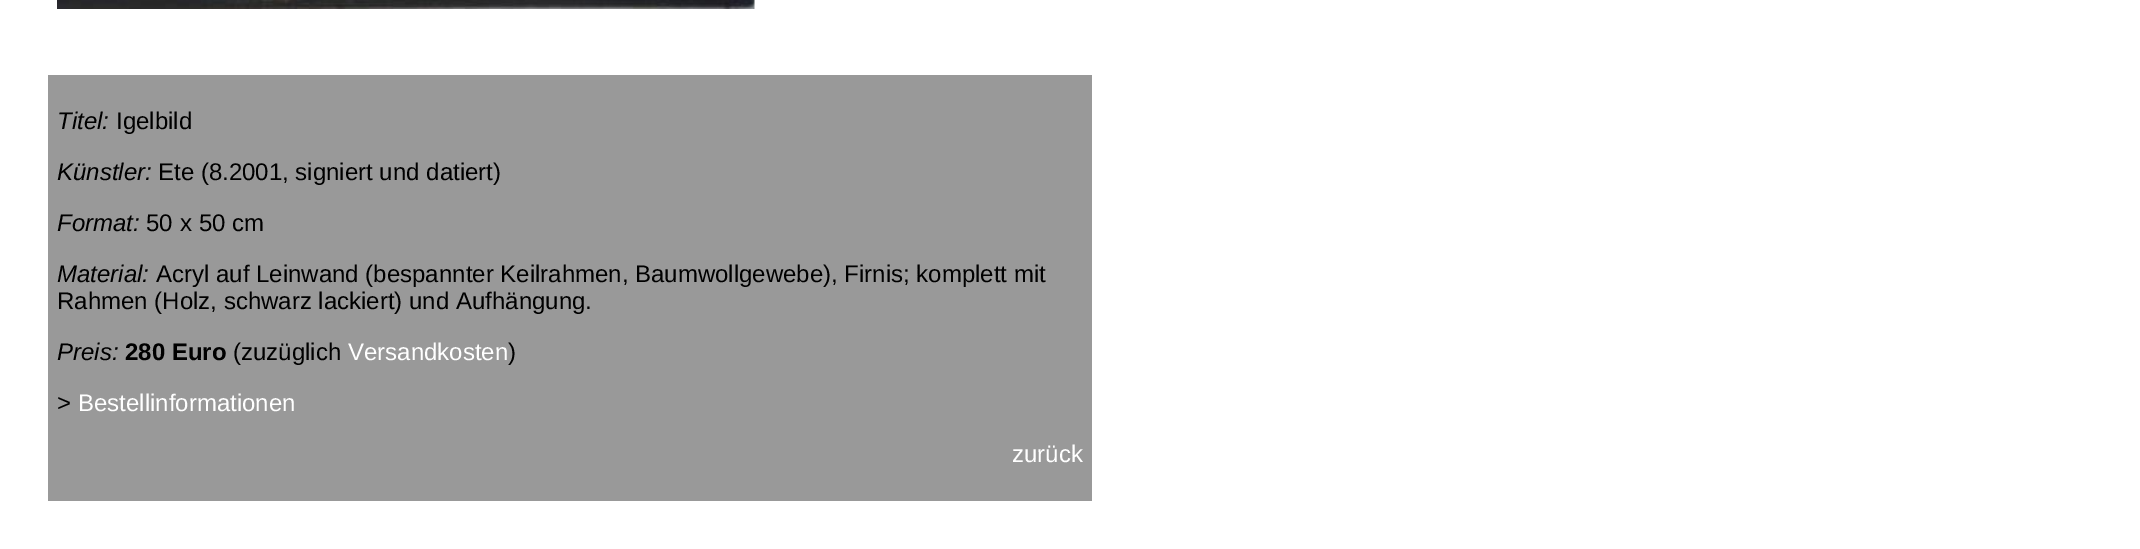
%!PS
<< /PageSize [2140 549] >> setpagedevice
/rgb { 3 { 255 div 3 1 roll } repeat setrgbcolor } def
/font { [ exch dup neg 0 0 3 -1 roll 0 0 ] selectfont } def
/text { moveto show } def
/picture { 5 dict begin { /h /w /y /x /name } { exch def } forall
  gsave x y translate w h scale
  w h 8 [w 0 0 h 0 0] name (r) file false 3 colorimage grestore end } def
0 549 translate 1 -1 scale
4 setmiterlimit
255 255 255 rgb
0 0 2140 549 rectfill
(img_01.rgb) 57 0 698 9 picture
153 153 153 rgb
48 75 1044 426 rectfill
/LiberationSans-Italic 24 font
0 0 0 rgb
(Titel:) 57 129 text
/LiberationSans-Regular 24 font
(Igelbild) 116 129 text
/LiberationSans-Italic 24 font
(Künstler:) 57 180 text
/LiberationSans-Regular 24 font
(Ete \(8.2001, signiert und datiert\)) 158 180 text
/LiberationSans-Italic 24 font
(Format:) 57 231 text
/LiberationSans-Regular 24 font
(50) 146 231 text
(x 50 cm) 180 231 text
/LiberationSans-Italic 24 font
(Material:) 57 282 text
/LiberationSans-Regular 24 font
(Acryl auf Leinwand \(bespannter Keilrahmen, Baumwollgewebe\), Firnis; komplett mit) 156 282 text
(Rahmen \(Holz, schwarz lackiert\) und Aufhängung.) 57 309 text
/LiberationSans-Italic 24 font
(Preis:) 57 360 text
/LiberationSans-Bold 24 font
(280 Euro) 125 360 text
/LiberationSans-Regular 24 font
(\(zuzüglich) 233 360 text
255 255 255 rgb
(Versandkosten) 348 360 text
0 0 0 rgb
(\)) 508 360 text
(>) 57 411 text
255 255 255 rgb
(Bestellinformationen) 78 411 text
(zurück) 1012 462 text
showpage
